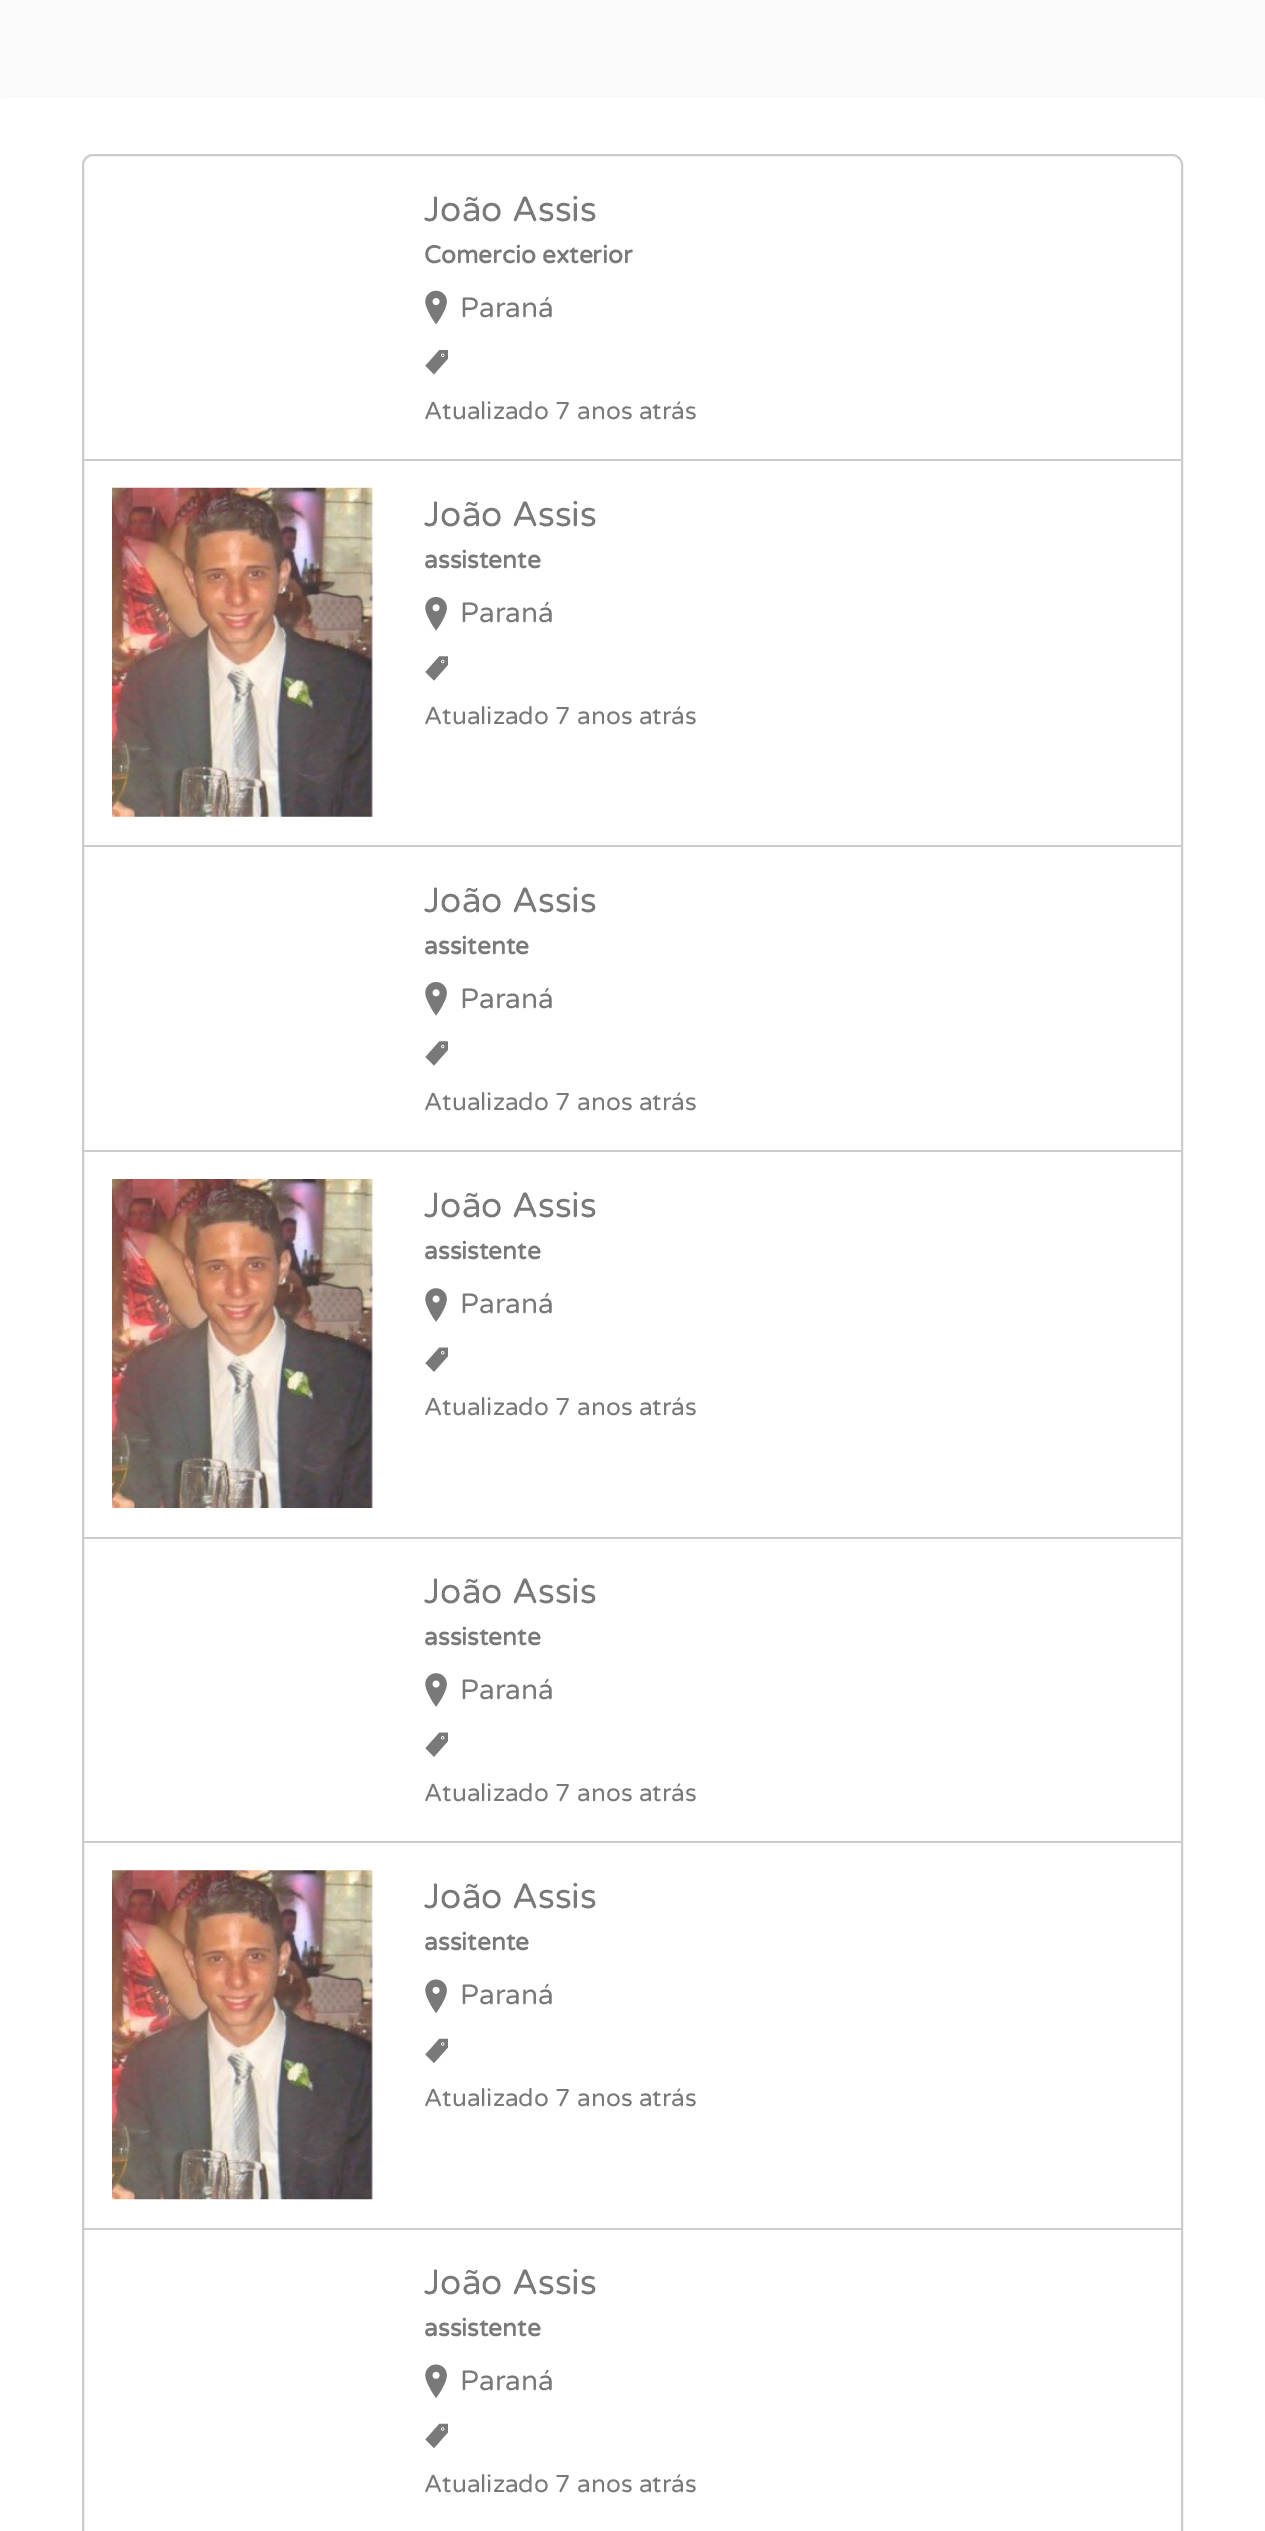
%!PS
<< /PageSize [1265 2531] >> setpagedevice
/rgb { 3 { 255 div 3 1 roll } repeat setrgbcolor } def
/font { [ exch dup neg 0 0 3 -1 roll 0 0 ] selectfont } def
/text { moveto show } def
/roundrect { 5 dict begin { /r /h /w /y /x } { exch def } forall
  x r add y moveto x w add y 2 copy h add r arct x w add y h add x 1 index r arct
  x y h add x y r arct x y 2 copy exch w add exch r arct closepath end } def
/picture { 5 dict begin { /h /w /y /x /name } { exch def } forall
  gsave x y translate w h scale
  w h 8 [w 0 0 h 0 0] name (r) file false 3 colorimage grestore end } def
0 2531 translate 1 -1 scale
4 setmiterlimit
250 250 250 rgb
0 0 1265 2531 rectfill
255 255 255 rgb
4 98 moveto 1257 0 rlineto 2 0 4 2 4 4 rcurveto 0 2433 rlineto -1265 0 rlineto 0 -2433 rlineto 0 -2 2 -4 4 -4 rcurveto closepath fill
204 204 204 rgb
2 setlinewidth
83 155 1099 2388 10 roundrect stroke
84 459 1097 2 rectfill
(img_01.rgb) 425 290 22 35 picture
(img_02.rgb) 425 350 23 25 picture
84 845 1097 2 rectfill
(img_03.rgb) 112 487 261 330 picture
(img_04.rgb) 425 597 22 34 picture
(img_05.rgb) 425 656 23 25 picture
84 1150 1097 2 rectfill
(img_04.rgb) 425 982 22 34 picture
(img_05.rgb) 425 1041 23 25 picture
84 1537 1097 2 rectfill
(img_06.rgb) 112 1179 261 329 picture
(img_07.rgb) 425 1288 22 34 picture
(img_08.rgb) 425 1347 23 25 picture
84 1841 1097 2 rectfill
(img_07.rgb) 425 1673 22 34 picture
(img_08.rgb) 425 1732 23 25 picture
84 2228 1097 2 rectfill
(img_09.rgb) 112 1870 261 330 picture
(img_10.rgb) 425 1979 22 34 picture
(img_11.rgb) 425 2038 23 26 picture
(img_10.rgb) 425 2364 22 34 picture
(img_11.rgb) 425 2423 23 26 picture
/VarelaRound-Regular 35 font
121 121 121 rgb
(João Assis) 424 221 text
/VarelaRound-Bold 24.5 font
(Comercio exterior) 424 263 text
/VarelaRound-Regular 28 font
(Paraná) 460 317 text
/VarelaRound-Regular 24.5 font
(Atualizado 7 anos atrás) 424 419 text
/VarelaRound-Regular 35 font
(João Assis) 424 526 text
/VarelaRound-Bold 24.5 font
(assistente) 424 568 text
/VarelaRound-Regular 28 font
(Paraná) 460 622 text
/VarelaRound-Regular 24.5 font
(Atualizado 7 anos atrás) 424 724 text
/VarelaRound-Regular 35 font
(João Assis) 424 912 text
/VarelaRound-Bold 24.5 font
(assitente) 424 954 text
/VarelaRound-Regular 28 font
(Paraná) 460 1008 text
/VarelaRound-Regular 24.5 font
(Atualizado 7 anos atrás) 424 1110 text
/VarelaRound-Regular 35 font
(João Assis) 424 1217 text
/VarelaRound-Bold 24.5 font
(assistente) 424 1259 text
/VarelaRound-Regular 28 font
(Paraná) 460 1313 text
/VarelaRound-Regular 24.5 font
(Atualizado 7 anos atrás) 424 1415 text
/VarelaRound-Regular 35 font
(João Assis) 424 1603 text
/VarelaRound-Bold 24.5 font
(assistente) 424 1645 text
/VarelaRound-Regular 28 font
(Paraná) 460 1699 text
/VarelaRound-Regular 24.5 font
(Atualizado 7 anos atrás) 424 1801 text
/VarelaRound-Regular 35 font
(João Assis) 424 1908 text
/VarelaRound-Bold 24.5 font
(assitente) 424 1950 text
/VarelaRound-Regular 28 font
(Paraná) 460 2004 text
/VarelaRound-Regular 24.5 font
(Atualizado 7 anos atrás) 424 2106 text
/VarelaRound-Regular 35 font
(João Assis) 424 2294 text
/VarelaRound-Bold 24.5 font
(assistente) 424 2336 text
/VarelaRound-Regular 28 font
(Paraná) 460 2390 text
/VarelaRound-Regular 24.5 font
(Atualizado 7 anos atrás) 424 2492 text
showpage
